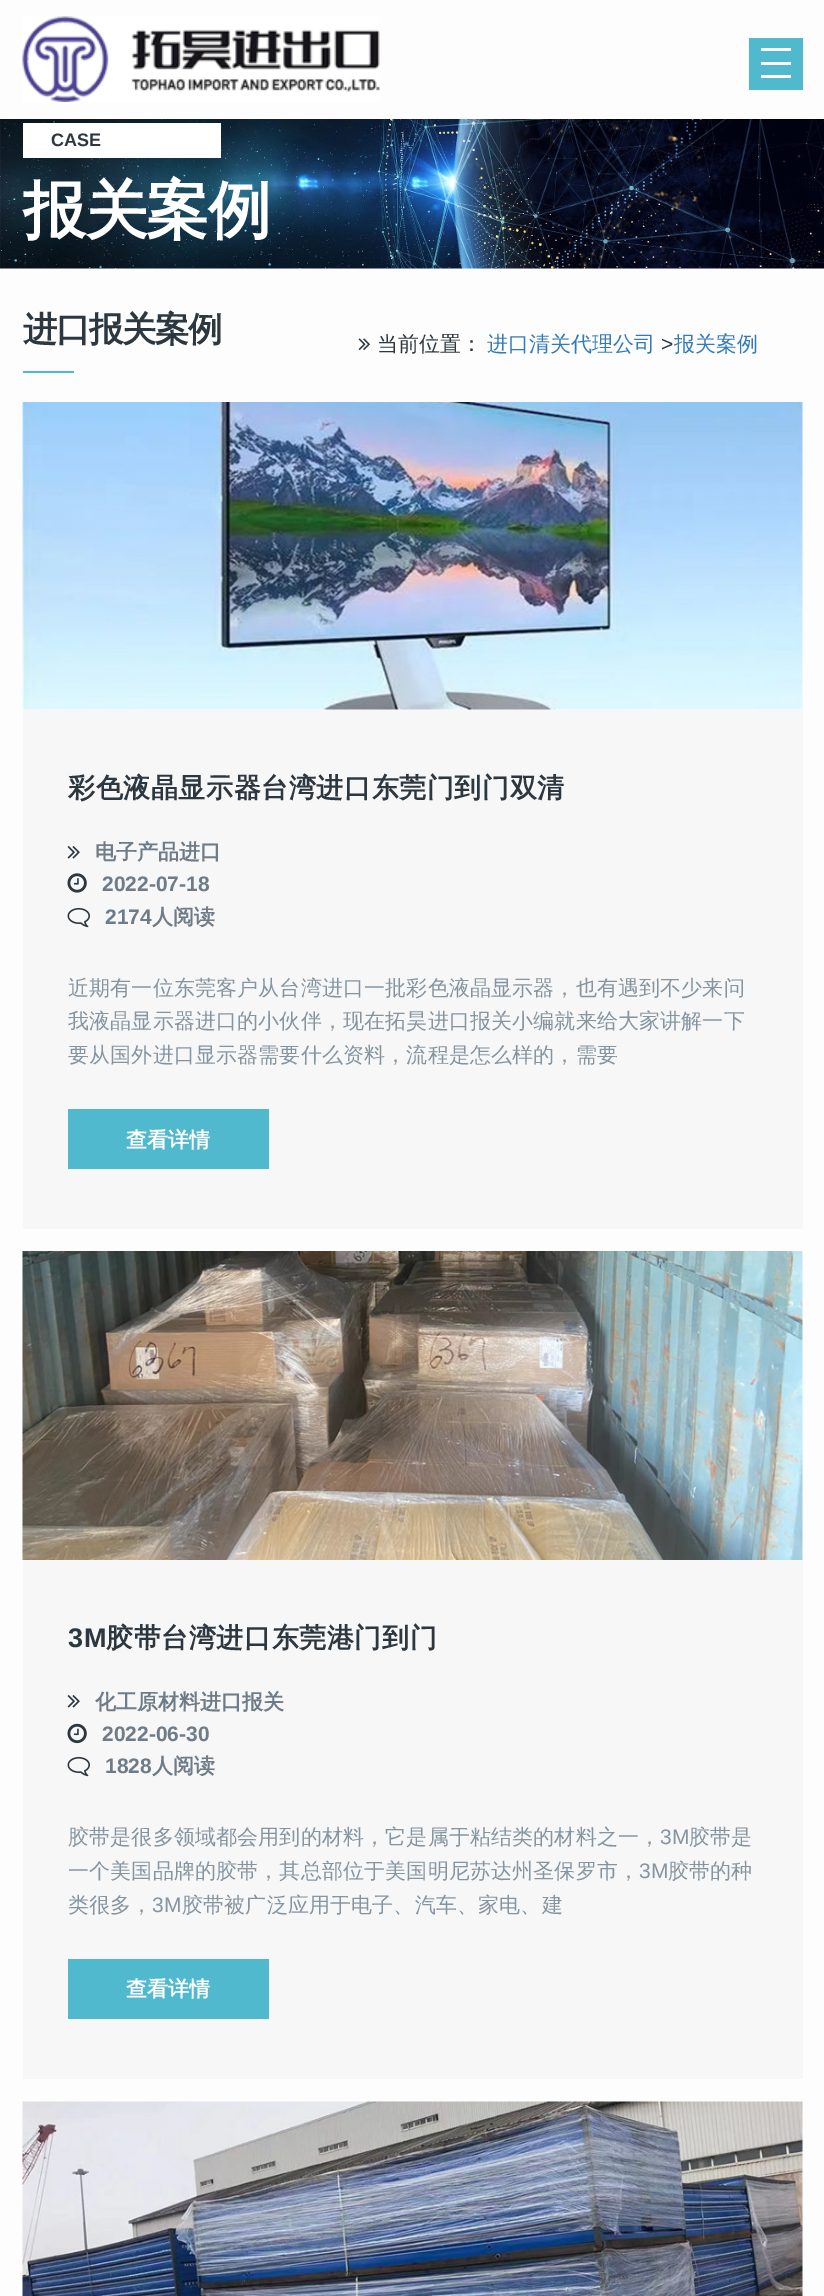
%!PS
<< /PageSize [824 2296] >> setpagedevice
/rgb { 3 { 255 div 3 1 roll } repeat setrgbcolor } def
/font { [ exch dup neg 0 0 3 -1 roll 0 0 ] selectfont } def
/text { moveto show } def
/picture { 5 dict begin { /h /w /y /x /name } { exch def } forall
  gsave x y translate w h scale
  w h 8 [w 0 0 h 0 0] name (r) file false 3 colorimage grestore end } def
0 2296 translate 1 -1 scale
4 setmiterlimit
253 253 253 rgb
0 0 824 2296 rectfill
(img_01.rgb) 22 16 358 86 picture
80 185 206 rgb
749 38 54 52 rectfill
255 255 255 rgb
761 48 30 3 rectfill
761 62 30 3 rectfill
761 75 30 3 rectfill
(img_02.rgb) 0 119 824 150 picture
23 123 198 35 rectfill
80 185 206 rgb
23 371 51 2 rectfill
(img_03.rgb) 358 338 12 12 picture
(img_04.rgb) 22 402 781 308 picture
247 247 247 rgb
23 710 780 519 rectfill
(img_05.rgb) 67 846 13 13 picture
(img_06.rgb) 67 873 20 20 picture
(img_07.rgb) 67 907 23 21 picture
80 185 206 rgb
68 1109 201 60 rectfill
(img_08.rgb) 22 1251 781 309 picture
247 247 247 rgb
23 1560 780 519 rectfill
(img_05.rgb) 67 1695 13 13 picture
(img_09.rgb) 67 1723 20 21 picture
(img_07.rgb) 67 1756 23 21 picture
80 185 206 rgb
68 1959 201 60 rectfill
(img_10.rgb) 22 2101 781 195 picture
/LiberationSans-Bold 18 font
44 55 64 rgb
(CASE) 51 146 text
/WenQuanYiZenHei-Bold 63 font
255 255 255 rgb
23 232 moveto -1.5 0 (报关案例) ashow
/WenQuanYiZenHei-Bold 34.5 font
44 55 64 rgb
23 341 moveto -1.5 0 (进口报关案例) ashow
/WenQuanYiZenHei-Medium 21 font
(当前位置：) 377 351 text
51 122 183 rgb
(进口清关代理公司) 487 351 text
/LiberationSans-Regular 21 font
44 55 64 rgb
(>) 661 351 text
/WenQuanYiZenHei-Medium 21 font
51 122 183 rgb
(报关案例) 674 351 text
/WenQuanYiZenHei-Bold 27 font
44 55 64 rgb
68 797 moveto 0.6 0 (彩色液晶显示器台湾进口东莞门到门双清) ashow
/WenQuanYiZenHei-Bold 21 font
109 124 136 rgb
(电子产品进口) 95 859 text
/LiberationSans-Bold 21 font
(2022-07-18) 102 891 text
(2174) 105 924 text
/WenQuanYiZenHei-Bold 21 font
(人阅读) 152 924 text
/WenQuanYiZenHei-Medium 21 font
132 148 160 rgb
68 995 moveto 0.15 0 (近期有一位东莞客户从台湾进口一批彩色液晶显示器，也有遇到不少来问) ashow
68 1028 moveto 0.15 0 (我液晶显示器进口的小伙伴，现在拓昊进口报关小编就来给大家讲解一下) ashow
68 1062 moveto 0.15 0 (要从国外进口显示器需要什么资料，流程是怎么样的，需要) ashow
/WenQuanYiZenHei-Bold 21 font
255 255 255 rgb
(查看详情) 126 1147 text
/LiberationSans-Bold 27 font
44 55 64 rgb
68 1647 moveto 0.6 0 (3M) ashow
/WenQuanYiZenHei-Bold 27 font
106 1647 moveto 0.6 0 (胶带台湾进口东莞港门到门) ashow
/WenQuanYiZenHei-Bold 21 font
109 124 136 rgb
(化工原材料进口报关) 95 1709 text
/LiberationSans-Bold 21 font
(2022-06-30) 102 1741 text
(1828) 105 1773 text
/WenQuanYiZenHei-Bold 21 font
(人阅读) 152 1773 text
/WenQuanYiZenHei-Medium 21 font
132 148 160 rgb
68 1844 moveto 0.15 0 (胶带是很多领域都会用到的材料，它是属于粘结类的材料之一，) ashow
/LiberationSans-Regular 21 font
660 1844 moveto 0.15 0 (3M) ashow
/WenQuanYiZenHei-Medium 21 font
689 1844 moveto 0.15 0 (胶带是) ashow
68 1878 moveto 0.15 0 (一个美国品牌的胶带，其总部位于美国明尼苏达州圣保罗市，) ashow
/LiberationSans-Regular 21 font
639 1878 moveto 0.15 0 (3M) ashow
/WenQuanYiZenHei-Medium 21 font
668 1878 moveto 0.15 0 (胶带的种) ashow
68 1912 moveto 0.15 0 (类很多，) ashow
/LiberationSans-Regular 21 font
152 1912 moveto 0.15 0 (3M) ashow
/WenQuanYiZenHei-Medium 21 font
182 1912 moveto 0.15 0 (胶带被广泛应用于电子、汽车、家电、建) ashow
/WenQuanYiZenHei-Bold 21 font
255 255 255 rgb
(查看详情) 126 1996 text
showpage
